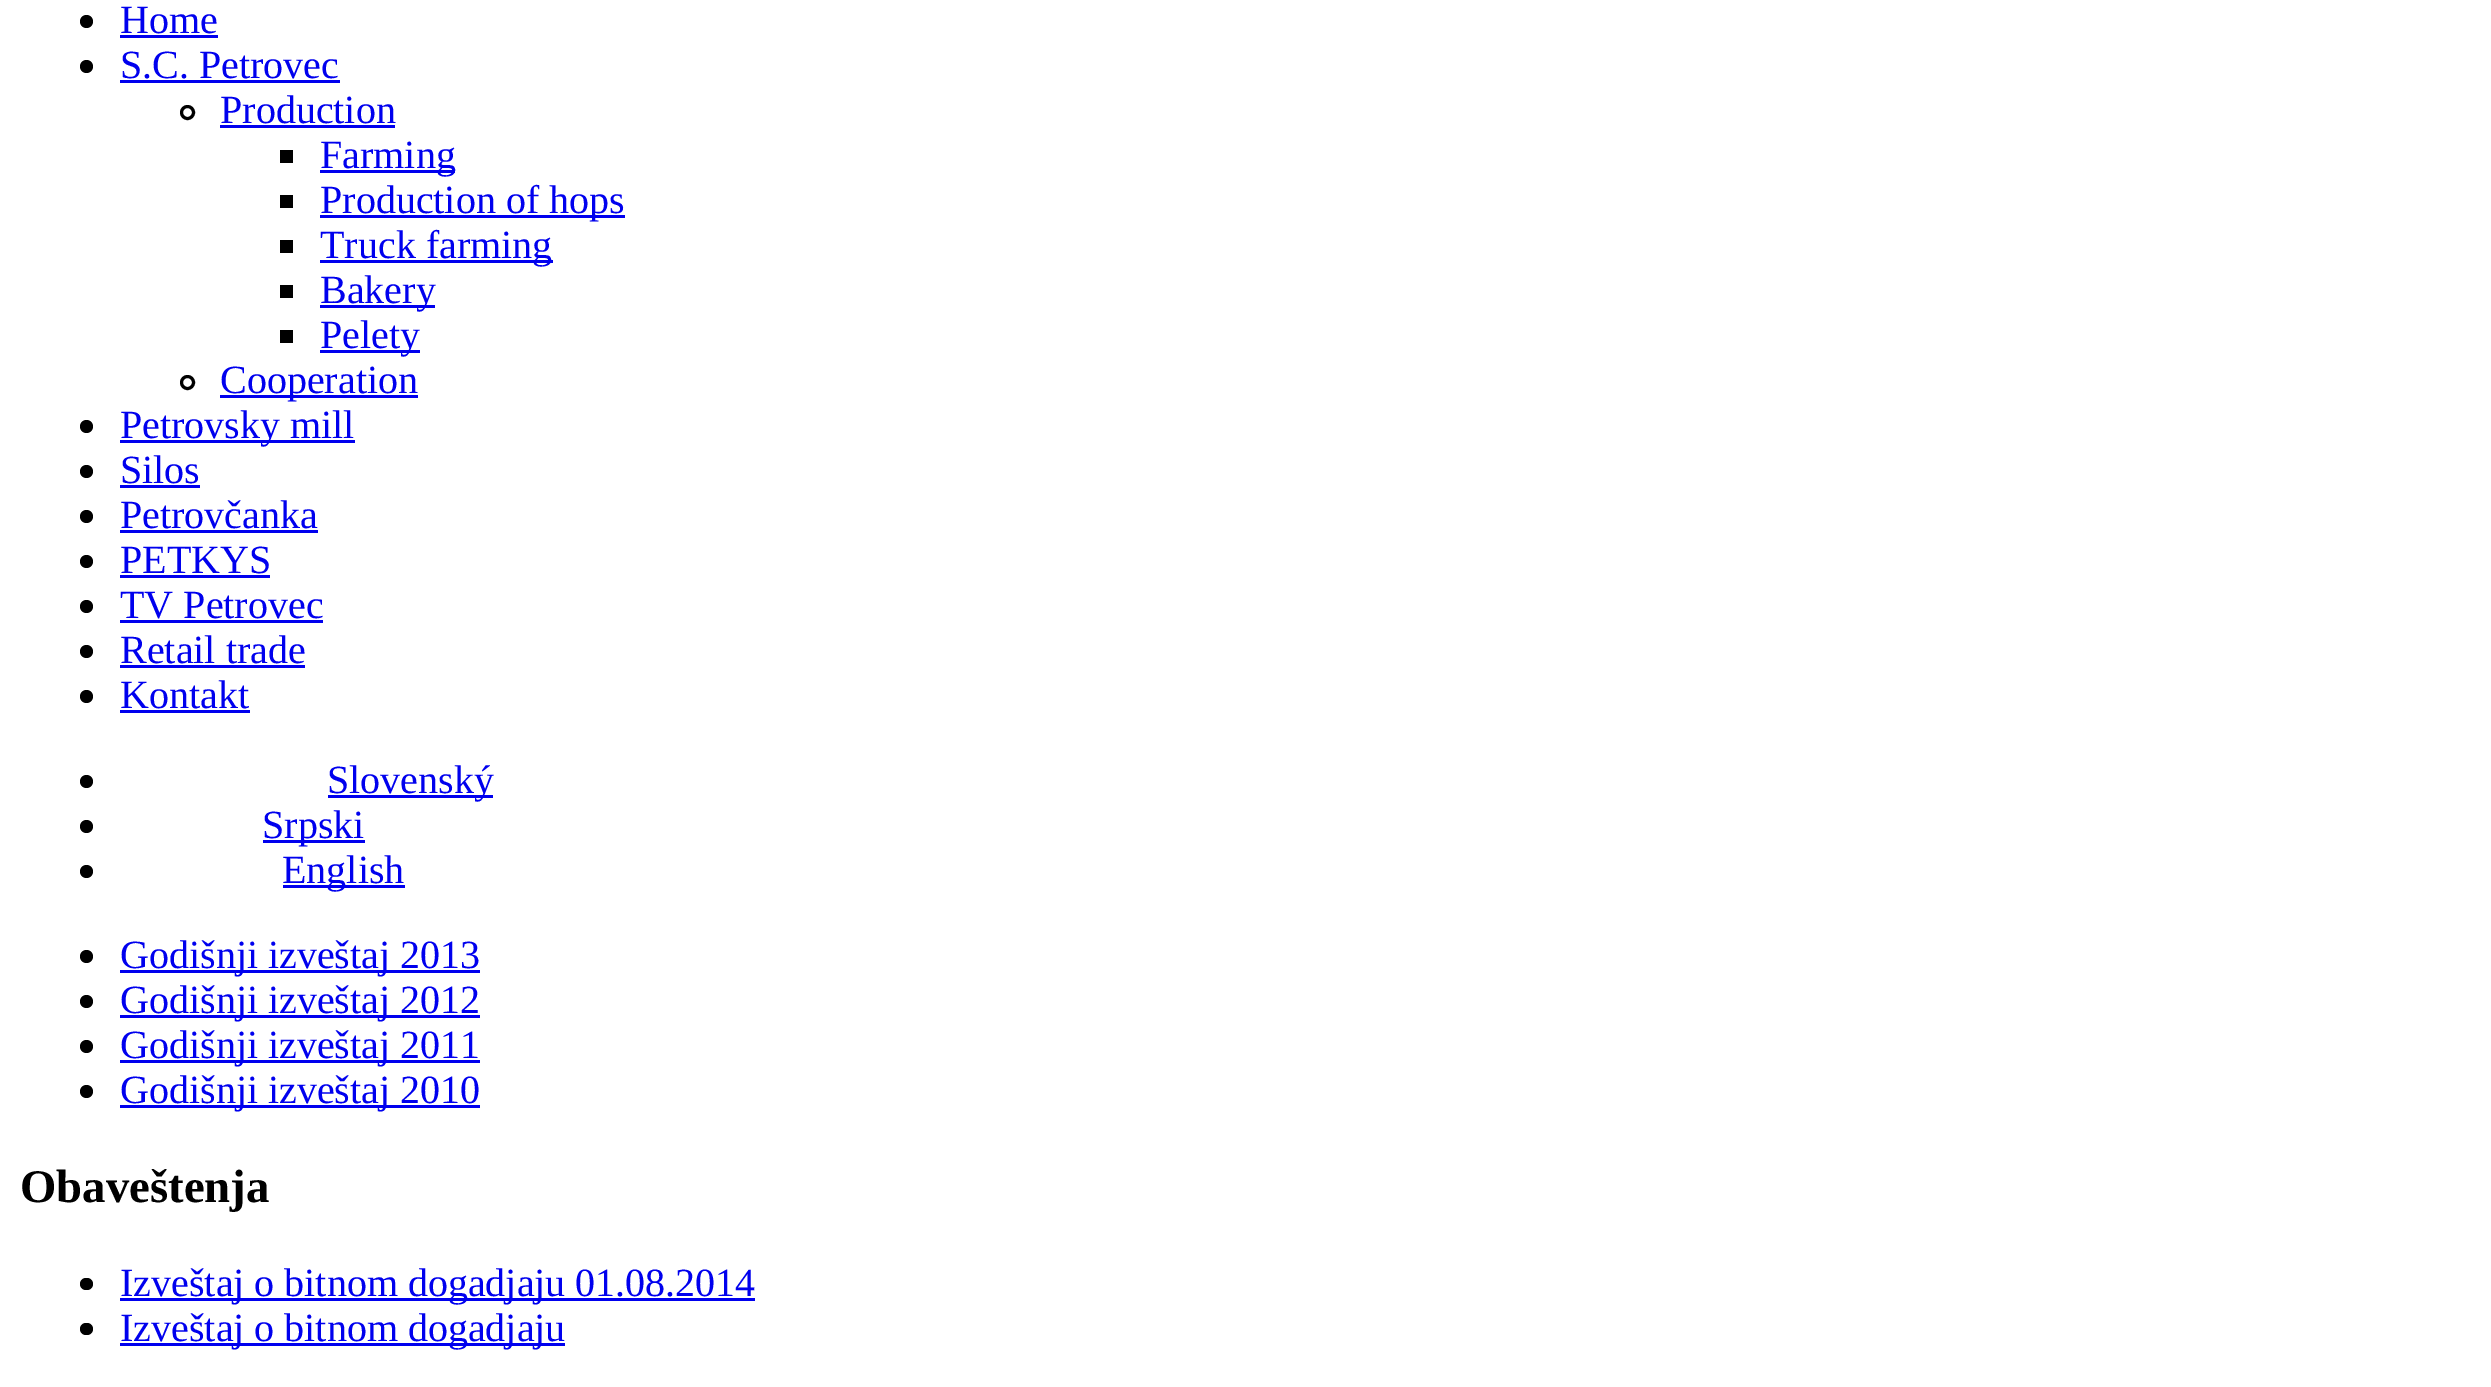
%!PS
<< /PageSize [2491 1387] >> setpagedevice
/rgb { 3 { 255 div 3 1 roll } repeat setrgbcolor } def
/font { [ exch dup neg 0 0 3 -1 roll 0 0 ] selectfont } def
/text { moveto show } def
/circle { newpath 0 360 arc closepath } def
/roundrect { 5 dict begin { /r /h /w /y /x } { exch def } forall
  x r add y moveto x w add y 2 copy h add r arct x w add y h add x 1 index r arct
  x y h add x y r arct x y 2 copy exch w add exch r arct closepath end } def
0 1387 translate 1 -1 scale
4 setmiterlimit
255 255 255 rgb
0 0 2491 1387 rectfill
0 0 0 rgb
86.5 21.5 6.5 circle fill
0 0 238 rgb
120 35 98 3 rectfill
0 0 0 rgb
86.5 66.5 6.5 circle fill
0 0 238 rgb
120 80 220 3 rectfill
0 0 0 rgb
3 setlinewidth
187.5 112.5 6 circle stroke
0 0 238 rgb
220 125 175 3 rectfill
0 0 0 rgb
280 150 13 13 rectfill
0 0 238 rgb
320 170 135 3 rectfill
0 0 0 rgb
280 195 13 13 rectfill
0 0 238 rgb
320 215 305 3 rectfill
0 0 0 rgb
280 240 13 13 rectfill
0 0 238 rgb
320 260 233 3 rectfill
0 0 0 rgb
280 285 13 13 rectfill
0 0 238 rgb
320 305 115 3 rectfill
0 0 0 rgb
280 330 13 13 rectfill
0 0 238 rgb
320 350 100 3 rectfill
0 0 0 rgb
187.5 382.5 6 circle stroke
0 0 238 rgb
220 395 198 3 rectfill
0 0 0 rgb
86.5 426.5 6.5 circle fill
0 0 238 rgb
120 440 235 3 rectfill
0 0 0 rgb
86.5 471.5 6.5 circle fill
0 0 238 rgb
120 485 80 3 rectfill
0 0 0 rgb
86.5 516.5 6.5 circle fill
0 0 238 rgb
120 530 198 3 rectfill
0 0 0 rgb
86.5 561.5 6.5 circle fill
0 0 238 rgb
120 575 150 3 rectfill
0 0 0 rgb
86.5 606.5 6.5 circle fill
0 0 238 rgb
120 620 203 3 rectfill
0 0 0 rgb
86.5 651.5 6.5 circle fill
0 0 238 rgb
120 665 185 3 rectfill
0 0 0 rgb
86.5 696.5 6.5 circle fill
0 0 238 rgb
120 710 130 3 rectfill
0 0 0 rgb
86.5 781.5 6.5 circle fill
0 0 238 rgb
328 795 165 3 rectfill
0 0 0 rgb
86.5 826.5 6.5 circle fill
0 0 238 rgb
263 840 102 3 rectfill
0 0 0 rgb
86.5 871.5 6.5 circle fill
0 0 238 rgb
283 885 122 3 rectfill
0 0 0 rgb
86.5 956.5 6.5 circle fill
0 0 238 rgb
120 970 360 3 rectfill
0 0 0 rgb
86.5 1001.5 6.5 circle fill
0 0 238 rgb
120 1015 360 3 rectfill
0 0 0 rgb
86.5 1046.5 6.5 circle fill
0 0 238 rgb
120 1060 360 3 rectfill
0 0 0 rgb
86.5 1091.5 6.5 circle fill
0 0 238 rgb
120 1105 360 3 rectfill
0 0 0 rgb
80 1278 13 12 6 roundrect fill
0 0 238 rgb
120 1298 635 3 rectfill
0 0 0 rgb
80 1323 13 12 6 roundrect fill
0 0 238 rgb
120 1343 445 3 rectfill
/LiberationSerif-Regular 40 font
(Home) 120 33 text
(S.C. Petrovec) 120 78 text
(Production) 220 123 text
(Farming) 320 168 text
(Production of hops) 320 213 text
(Truck farming) 320 258 text
(Bakery) 320 303 text
(Pelety) 320 348 text
(Cooperation) 220 393 text
(Petrovsky mill) 120 438 text
(Silos) 120 483 text
(Petrovčanka) 120 528 text
(PETKYS) 120 573 text
(TV Petrovec) 120 618 text
(Retail trade) 120 663 text
(Kontakt) 120 708 text
(Slovenský) 327 793 text
(Srpski) 262 838 text
(English) 282 883 text
(Godišnji izveštaj 2013) 120 968 text
(Godišnji izveštaj 2012) 120 1013 text
(Godišnji izveštaj 2011) 120 1058 text
(Godišnji izveštaj 2010) 120 1103 text
/LiberationSerif-Bold 46.75 font
0 0 0 rgb
(Obaveštenja) 20 1202 text
/LiberationSerif-Regular 40 font
0 0 238 rgb
(Izveštaj o bitnom dogadjaju 01.08.2014) 120 1296 text
(Izveštaj o bitnom dogadjaju) 120 1341 text
showpage
